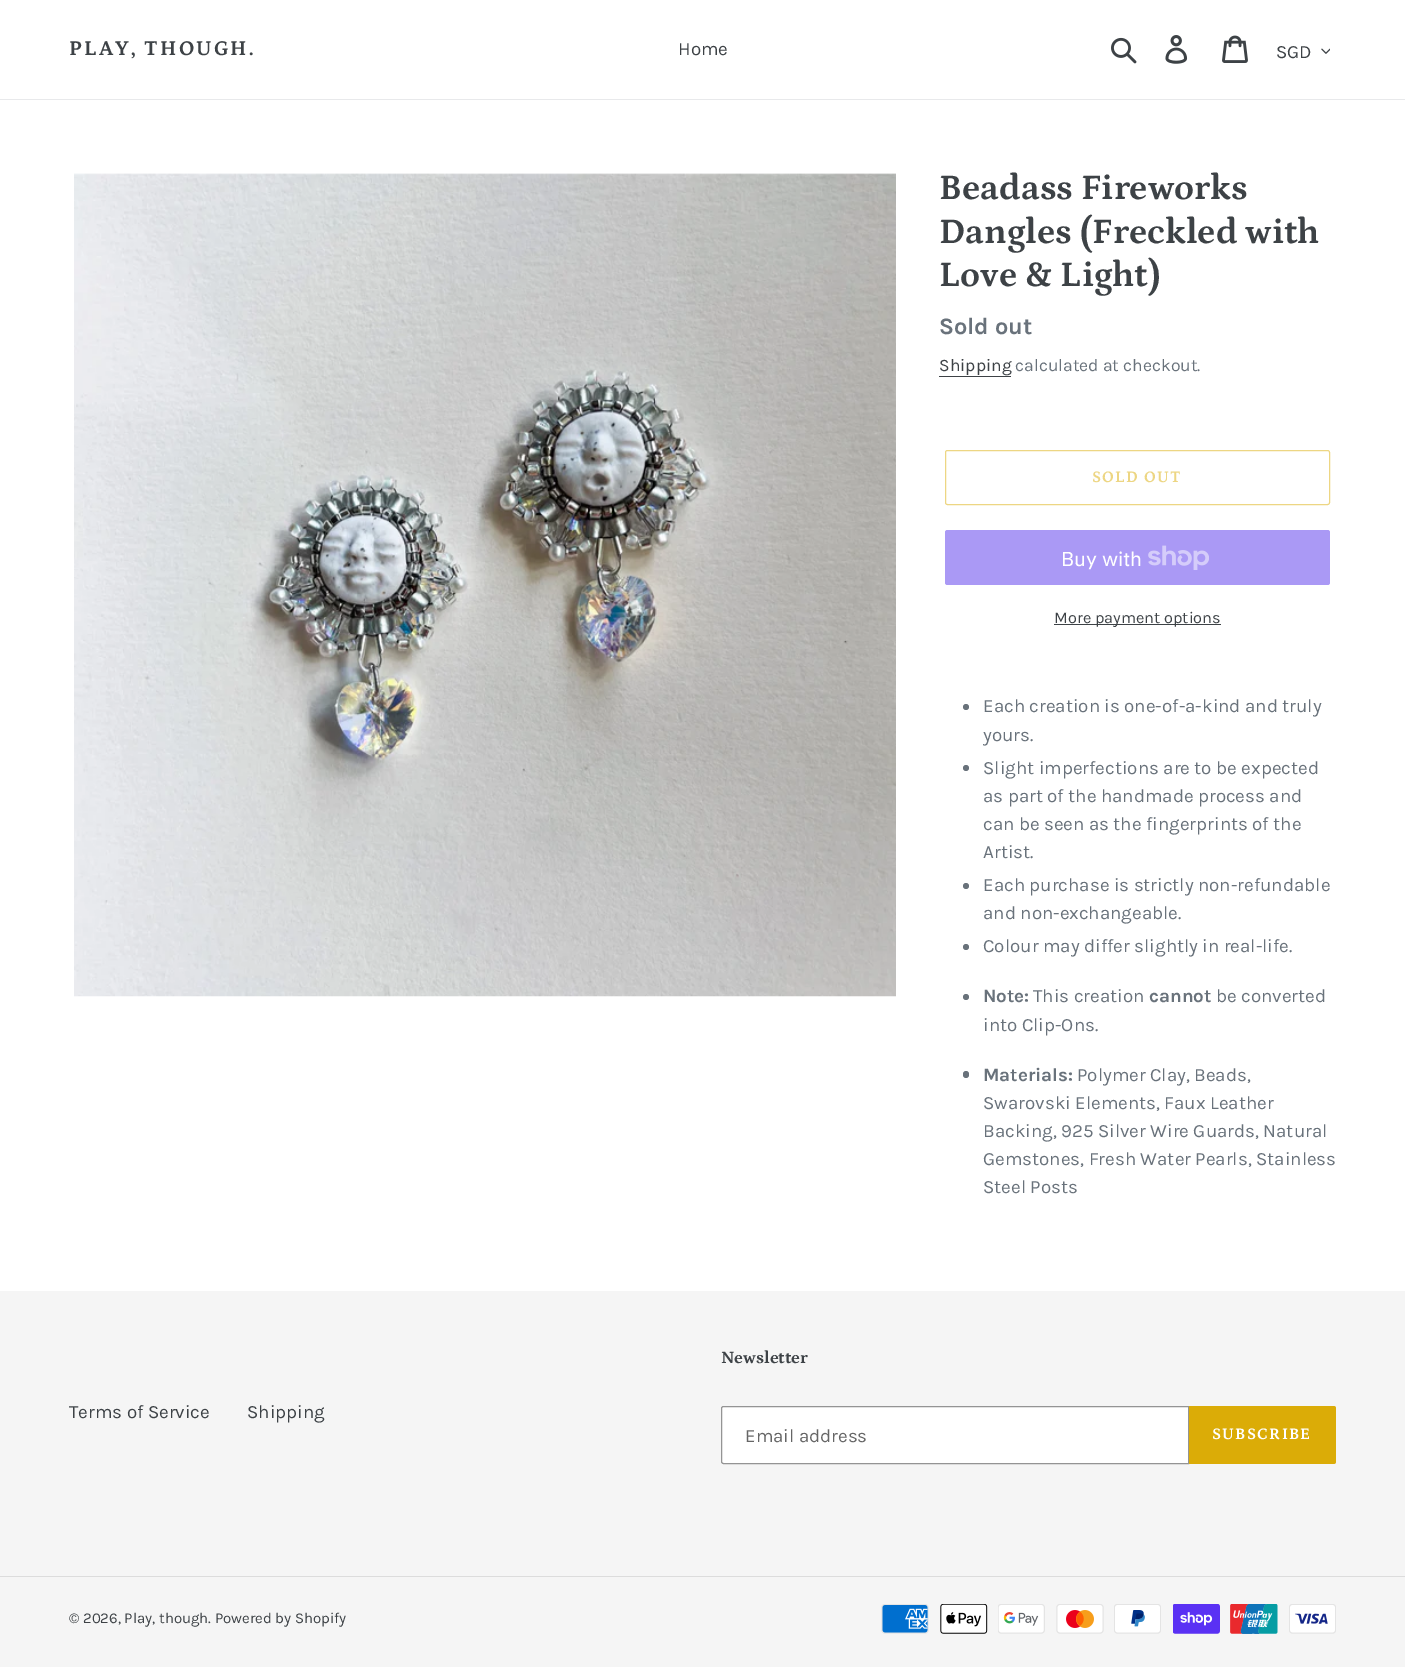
%!PS
<< /PageSize [1405 1667] >> setpagedevice
/rgb { 3 { 255 div 3 1 roll } repeat setrgbcolor } def
/font { [ exch dup neg 0 0 3 -1 roll 0 0 ] selectfont } def
/text { moveto show } def
/circle { newpath 0 360 arc closepath } def
/roundrect { 5 dict begin { /r /h /w /y /x } { exch def } forall
  x r add y moveto x w add y 2 copy h add r arct x w add y h add x 1 index r arct
  x y h add x y r arct x y 2 copy exch w add exch r arct closepath end } def
/picture { 5 dict begin { /h /w /y /x /name } { exch def } forall
  gsave x y translate w h scale
  w h 8 [w 0 0 h 0 0] name (r) file false 3 colorimage grestore end } def
0 1667 translate 1 -1 scale
4 setmiterlimit
255 255 255 rgb
0 0 1405 1667 rectfill
232 233 235 rgb
0 99 1405 1 rectfill
(img_01.rgb) 1111 37 26 27 picture
(img_02.rgb) 1165 35 23 29 picture
(img_03.rgb) 1222 35 26 28 picture
(img_04.rgb) 1321 48 9 6 picture
(img_05.rgb) 74 173 822 824 picture
61 66 70 rgb
939 376 72 1 rectfill
237 214 131 rgb
945.5 450.5 384 54 2 roundrect stroke
170 153 245 rgb
945 530 385 55 2.5 roundrect fill
(img_06.rgb) 1148 545 61 25 picture
61 66 70 rgb
1054 624 167 1 rectfill
105 114 123 rgb
966 707 3 circle fill
966 768 3 circle fill
966 886 3 circle fill
966 947 3 circle fill
966 997 3 circle fill
963 1071 6 7 3 roundrect fill
245 245 245 rgb
0 1291 1405 376 rectfill
255 255 255 rgb
723.5 1406.5 moveto 465 0 rlineto 0 57 rlineto -465 0 rlineto -1 0 -2 -1 -2 -2 rcurveto 0 -53 rlineto 0 -1 1 -2 2 -2 rcurveto closepath gsave fill grestore
148 148 148 rgb
stroke
219 172 7 rgb
1189 1406 moveto 144.5 0 rlineto 1.5 0 2.5 1 2.5 2.5 rcurveto 0 53 rlineto 0 1.5 -1 2.5 -2.5 2.5 rcurveto -144.5 0 rlineto closepath fill
220 220 220 rgb
0 1576 1405 1 rectfill
(img_07.rgb) 881 1604 48 30 picture
(img_08.rgb) 940 1604 48 30 picture
(img_09.rgb) 998 1604 47 30 picture
(img_10.rgb) 1056 1604 48 30 picture
(img_11.rgb) 1114 1604 47 30 picture
(img_12.rgb) 1173 1604 47 30 picture
(img_13.rgb) 1230 1604 48 30 picture
(img_14.rgb) 1289 1604 47 30 picture
/Petrona-Bold 21.25 font
61 66 70 rgb
69 55 moveto 2.1 0 (PLAY, THOUGH.) ashow
/Karla-Regular 18.75 font
(Home) 678 55 text
(SGD) 1276 58 text
/Petrona-Bold 36.25 font
(Beadass Fireworks) 939 199 text
(Dangles \(Freckled with) 939 243 text
(Love & Light\)) 939 286 text
/Karla-Bold 23.5 font
105 114 123 rgb
(Sold out) 939 334 text
/Karla-Regular 17.5 font
61 66 70 rgb
(Shipping) 939 371 text
105 114 123 rgb
(calculated at checkout.) 1015 371 text
/Petrona-Bold 16.25 font
237 214 131 rgb
1092 482 moveto 1.25 0 (SOLD OUT) ashow
/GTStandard-Regular 20 font
255 255 255 rgb
(Buy with) 1061 566 text
/Karla-Regular 16.25 font
61 66 70 rgb
(More payment options) 1054 623 text
/Karla-Regular 18.75 font
105 114 123 rgb
(Each creation is one-of-a-kind and truly) 983 712 text
(yours.) 983 741 text
(Slight imperfections are to be expected) 983 774 text
(as part of the handmade process and) 983 802 text
(can be seen as the fingerprints of the) 983 830 text
(Artist.) 983 858 text
(Each purchase is strictly non-refundable) 983 891 text
(and non-exchangeable.) 983 919 text
(Colour may differ slightly in real-life.) 983 952 text
/Karla-Bold 18.75 font
(Note:) 983 1002 text
/Karla-Regular 18.75 font
(This creation) 1033 1002 text
/Karla-Bold 18.75 font
(cannot) 1149 1002 text
/Karla-Regular 18.75 font
(be converted) 1216 1002 text
(into Clip-Ons.) 983 1031 text
/Karla-Bold 18.75 font
(Materials:) 983 1081 text
/Karla-Regular 18.75 font
(Polymer Clay, Beads,) 1077 1081 text
(Swarovski Elements, Faux Leather) 983 1109 text
(Backing, 925 Silver Wire Guards, Natural) 983 1137 text
(Gemstones, Fresh Water Pearls, Stainless) 983 1165 text
(Steel Posts) 983 1193 text
61 66 70 rgb
(Terms of Service) 69 1418 text
(Shipping) 247 1418 text
/Petrona-Bold 17.5 font
(Newsletter) 721 1363 text
/Karla-Regular 18.75 font
102 102 102 rgb
(Email address) 745 1442 text
/Petrona-Bold 16.25 font
255 255 255 rgb
1212 1439 moveto 1.25 0 (SUBSCRIBE) ashow
/Karla-Regular 15 font
61 66 70 rgb
(© 2026, Play, though. Powered by Shopify) 69 1623 text
showpage
